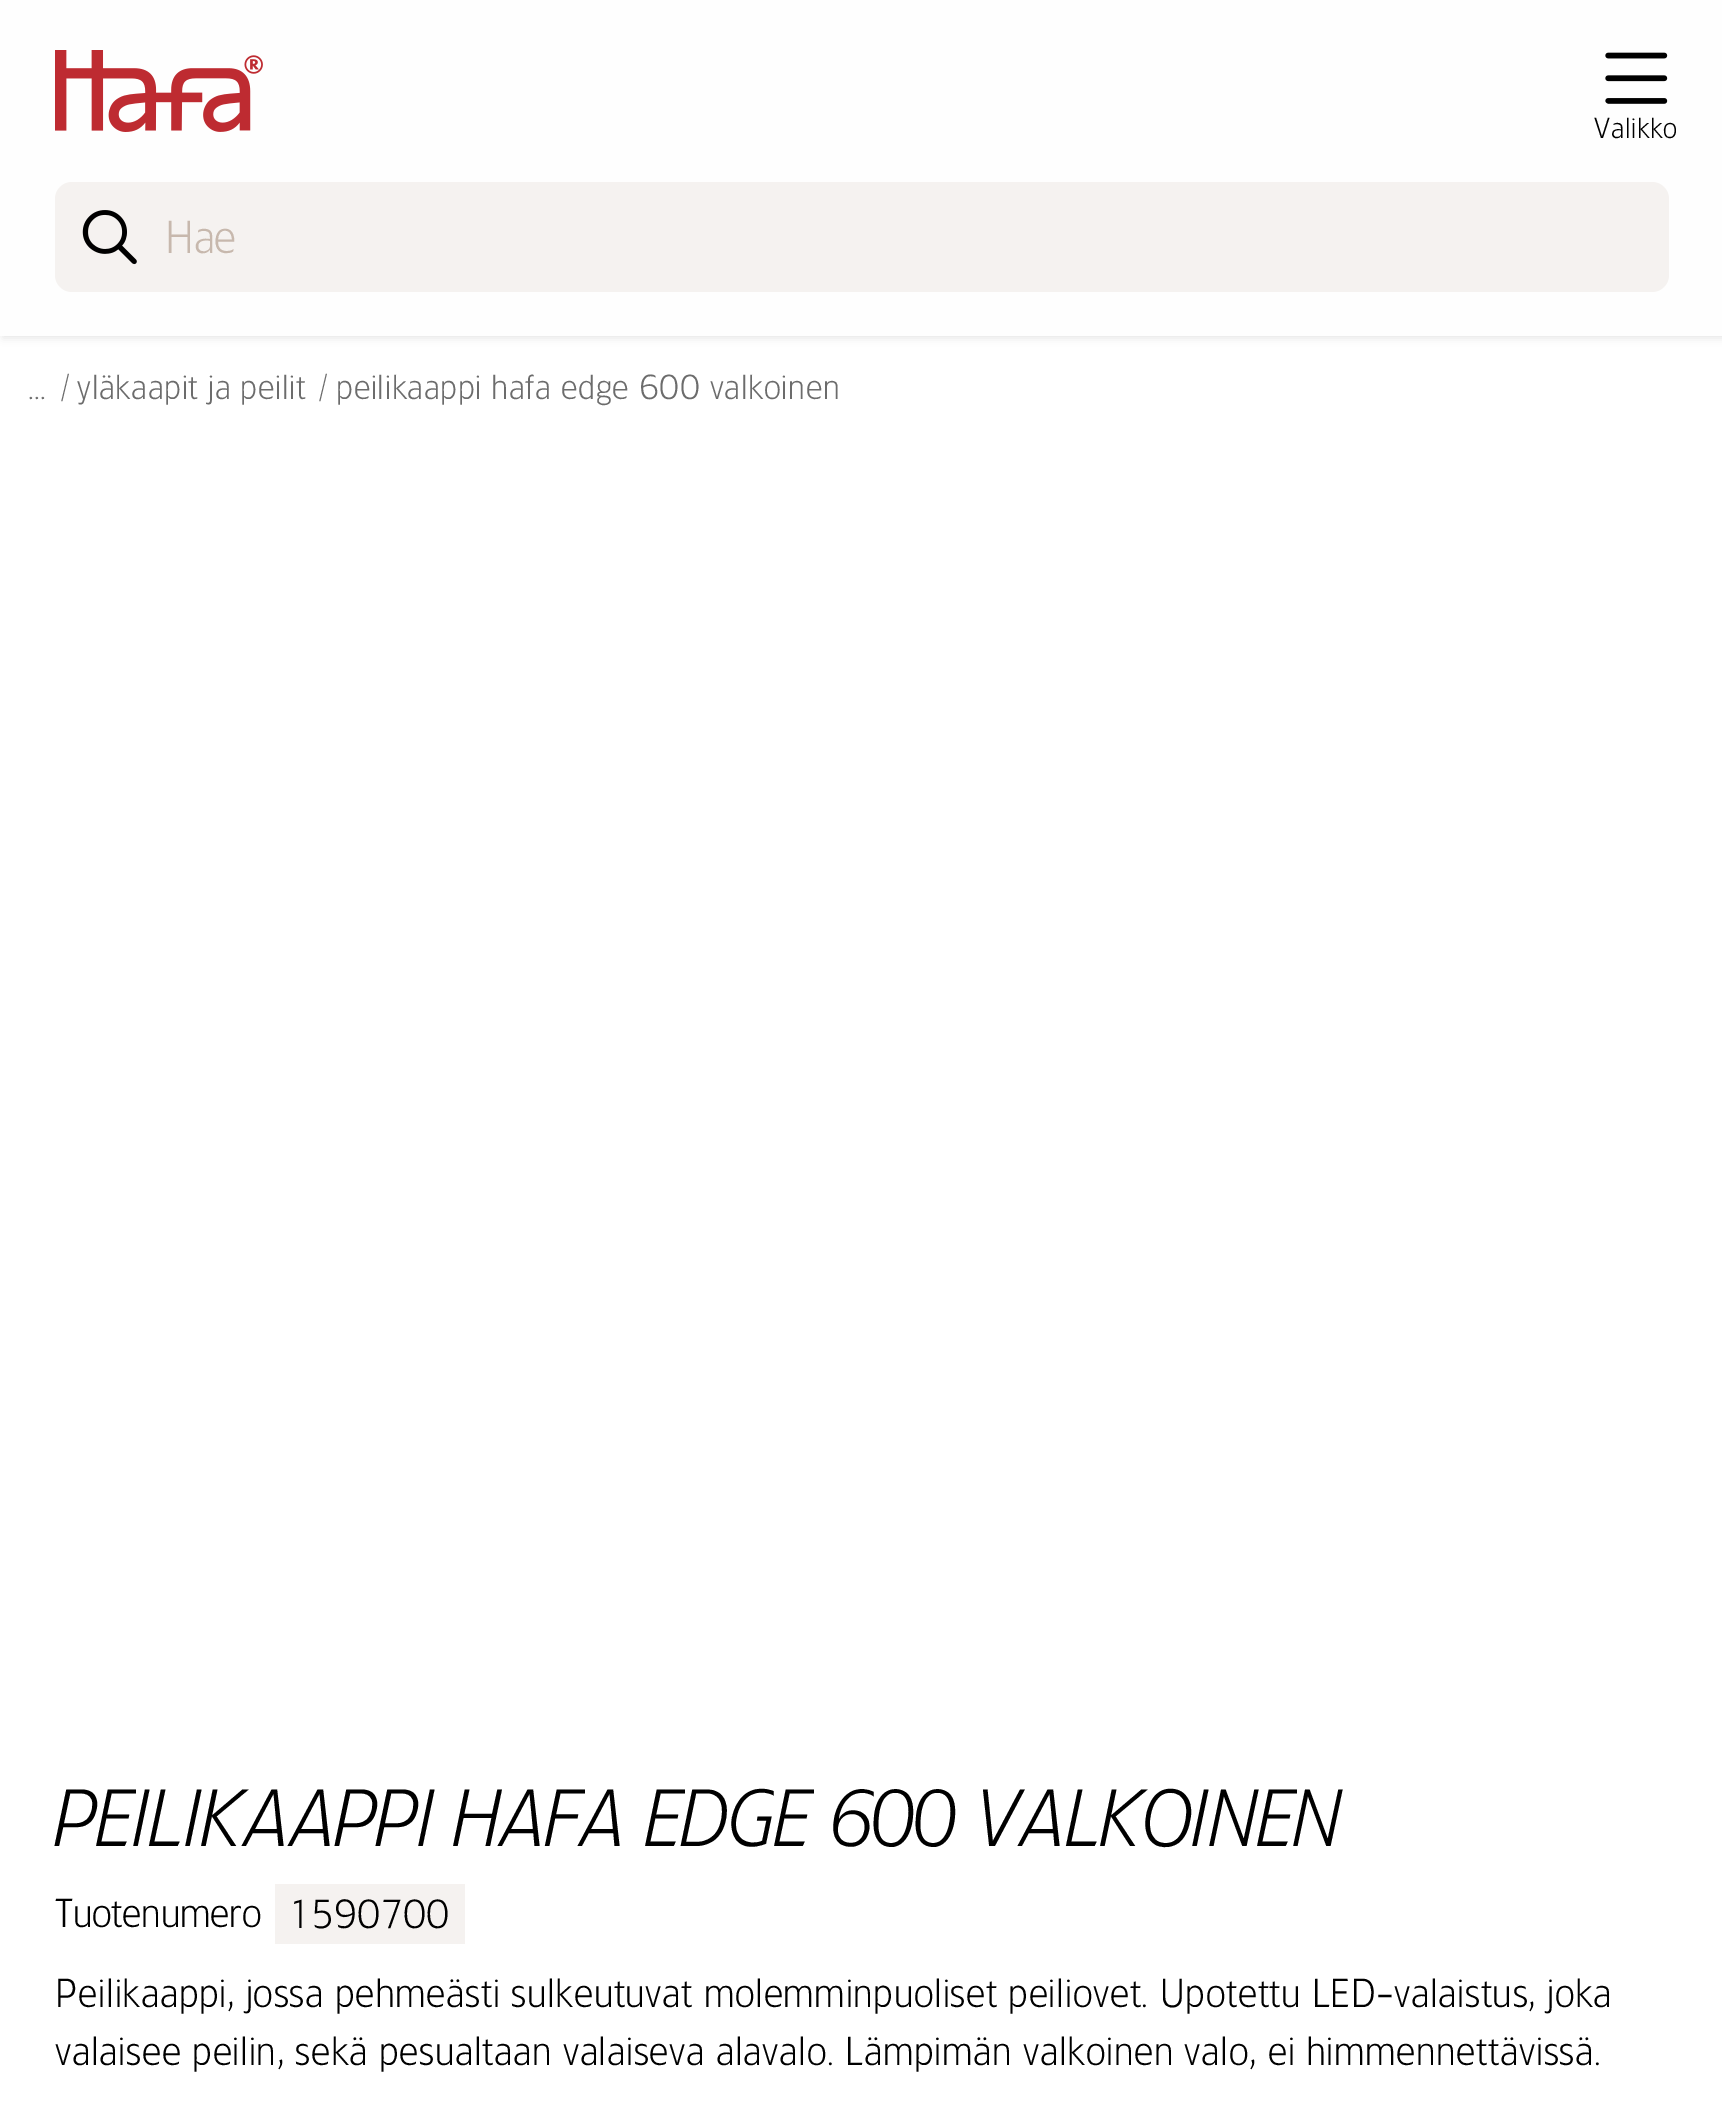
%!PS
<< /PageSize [1722 2113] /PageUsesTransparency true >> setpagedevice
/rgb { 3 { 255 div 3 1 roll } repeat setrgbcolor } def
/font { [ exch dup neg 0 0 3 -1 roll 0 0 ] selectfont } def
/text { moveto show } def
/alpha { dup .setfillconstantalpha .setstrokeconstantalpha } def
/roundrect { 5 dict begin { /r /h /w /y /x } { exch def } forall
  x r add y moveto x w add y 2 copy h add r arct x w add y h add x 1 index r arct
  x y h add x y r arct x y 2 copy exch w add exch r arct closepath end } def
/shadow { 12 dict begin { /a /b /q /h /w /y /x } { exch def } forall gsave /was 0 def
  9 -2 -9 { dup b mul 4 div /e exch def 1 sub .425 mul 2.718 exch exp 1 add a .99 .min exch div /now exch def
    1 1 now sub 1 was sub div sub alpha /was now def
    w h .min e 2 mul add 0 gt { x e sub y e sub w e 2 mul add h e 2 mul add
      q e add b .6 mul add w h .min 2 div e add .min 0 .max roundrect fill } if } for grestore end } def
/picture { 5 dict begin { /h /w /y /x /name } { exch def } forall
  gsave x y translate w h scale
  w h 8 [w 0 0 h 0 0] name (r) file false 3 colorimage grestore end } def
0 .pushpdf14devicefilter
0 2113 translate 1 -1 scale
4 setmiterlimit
255 255 255 rgb
0 0 1722 2113 rectfill
0 0 0 rgb
3 3 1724 335 0 4 0.1 shadow
254 254 254 rgb
0 0 1722 336 rectfill
(img_01.rgb) 55 50 208 82 picture
(img_02.rgb) 1605 52 63 52 picture
245 242 240 rgb
55 182 1614 110 17 roundrect fill
(img_03.rgb) 82 210 55 55 picture
275 1884 190 60 rectfill
/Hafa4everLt-Medium 27.5 font
0 0 0 rgb
1594 138 moveto 0.88 0 (Valikko) ashow
/Hafa4everLt-Medium 44 font
199 184 173 rgb
(Hae) 165 253 text
/Hafa4everLt-Medium 33 font
108 108 108 rgb
(...  /) 28 399 text
77 399 moveto 0.88 0 (yläkaapit ja peilit) ashow
(/) 320 399 text
336 399 moveto 0.88 0 (peilikaappi hafa edge 600 valkoinen) ashow
/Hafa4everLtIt-Medium 77 font
0 0 0 rgb
(PEILIKAAPPI HAFA EDGE 600 VALKOINEN) 55 1846 text
/Hafa4everLt-Medium 38.5 font
(Tuotenumero) 55 1927 text
(1590700) 288 1928 text
55 2007 moveto 0.88 0 (Peilikaappi, jossa pehmeästi sulkeutuvat molemminpuoliset peiliovet. Upotettu LED-valaistus, joka) ashow
55 2065 moveto 0.88 0 (valaisee peilin, sekä pesualtaan valaiseva alavalo. Lämpimän valkoinen valo, ei himmennettävissä.) ashow
.poppdf14devicefilter showpage
